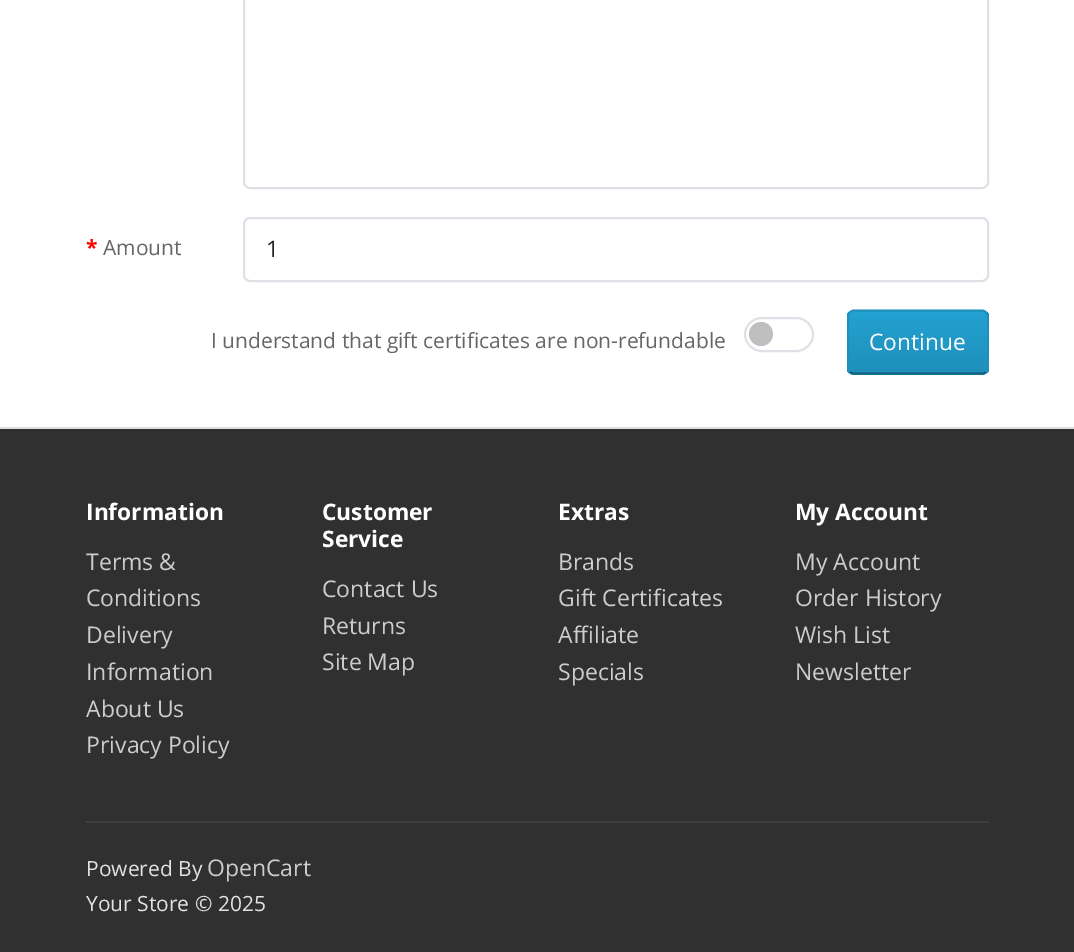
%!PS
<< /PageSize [1074 952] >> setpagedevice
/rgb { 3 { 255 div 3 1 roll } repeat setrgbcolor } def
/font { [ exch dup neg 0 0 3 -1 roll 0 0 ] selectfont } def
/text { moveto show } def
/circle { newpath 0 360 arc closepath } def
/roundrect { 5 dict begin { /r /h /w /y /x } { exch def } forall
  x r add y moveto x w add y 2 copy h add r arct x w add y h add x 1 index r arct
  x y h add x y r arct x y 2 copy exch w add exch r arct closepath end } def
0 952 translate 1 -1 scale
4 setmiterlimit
255 255 255 rgb
0 0 1074 952 rectfill
222 226 230 rgb
2 setlinewidth
244 -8 744 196 6 roundrect stroke
244 218 744 63 6 roundrect stroke
191 191 191 rgb
761 334 12 circle fill
222 226 230 rgb
745 318 68 33 16.5 roundrect stroke
34 154 200 rgb
847 310 142 65 7 roundrect fill
gsave
847 310 142 65 7 roundrect clip newpath
gsave 847 312 moveto 142 0 rlineto 0 61 rlineto -142 0 rlineto closepath clip newpath
<< /ShadingType 2 /ColorSpace /DeviceRGB /Coords [918 312 918 373] /Extend [true true] /Function << /FunctionType 2 /Domain [0 1] /C0 [0.137 0.631 0.82] /C1 [0.122 0.565 0.733] /N 1 >> >> shfill grestore
grestore
20 94 122 rgb
1.8 setlinewidth
986 372 moveto -1 1 -2.5 1.5 -4 1.5 rcurveto -128 0 rlineto -1.5 0 -3 -0.5 -4.5 -1.5 rcurveto stroke
31 144 187 rgb
849.5 372 moveto -1 -1.5 -1.5 -3 -1.5 -4.5 rcurveto 0 -50.5 rlineto 0 -2 0.5 -3.5 1.5 -4.5 rcurveto 1.5 -1 3 -2 4.5 -2 rcurveto 128 0 rlineto 1.5 0 3 1 4 2 rcurveto 1 1 2 2.5 2 4.5 rcurveto 0 50.5 rlineto 0 1.5 -1 3 -2 4.5 rcurveto stroke
48 48 48 rgb
0 429 1074 523 rectfill
221 221 221 rgb
0 427 1074 2 rectfill
62 62 62 rgb
86 821 903 2 rectfill
/OpenSans-Bold 21 font
255 0 0 rgb
(*) 86 255 text
/OpenSans-Regular 21 font
102 102 102 rgb
(Amount) 103 255 text
/OpenSans-Regular 22.75 font
33 37 41 rgb
(1) 266 257 text
/OpenSans-Regular 21 font
102 102 102 rgb
(I understand that gift certificates are non-refundable) 211 348 text
/OpenSans-Regular 22.75 font
255 255 255 rgb
(Continue) 869 350 text
/OpenSans-Bold 22.75 font
(Information) 86 520 text
/OpenSans-Regular 23 font
204 204 204 rgb
(Terms &) 86 570 text
(Conditions) 86 606 text
(Delivery) 86 643 text
(Information) 86 680 text
(About Us) 86 717 text
(Privacy Policy) 86 753 text
/OpenSans-Bold 22.75 font
255 255 255 rgb
(Customer) 322 520 text
(Service) 322 547 text
/OpenSans-Regular 23 font
204 204 204 rgb
(Contact Us) 322 597 text
(Returns) 322 634 text
(Site Map) 322 670 text
/OpenSans-Bold 22.75 font
255 255 255 rgb
(Extras) 558 520 text
/OpenSans-Regular 23 font
204 204 204 rgb
(Brands) 558 570 text
(Gift Certificates) 558 606 text
(Affiliate) 558 643 text
(Specials) 558 680 text
/OpenSans-Bold 22.75 font
255 255 255 rgb
(My Account) 795 520 text
/OpenSans-Regular 23 font
204 204 204 rgb
(My Account) 795 570 text
(Order History) 795 606 text
(Wish List) 795 643 text
(Newsletter) 795 680 text
/OpenSans-Regular 21 font
226 226 226 rgb
(Powered By) 86 876 text
/OpenSans-Regular 23 font
204 204 204 rgb
(OpenCart) 207 876 text
/OpenSans-Regular 21 font
226 226 226 rgb
(Your Store © 2025) 86 911 text
showpage
